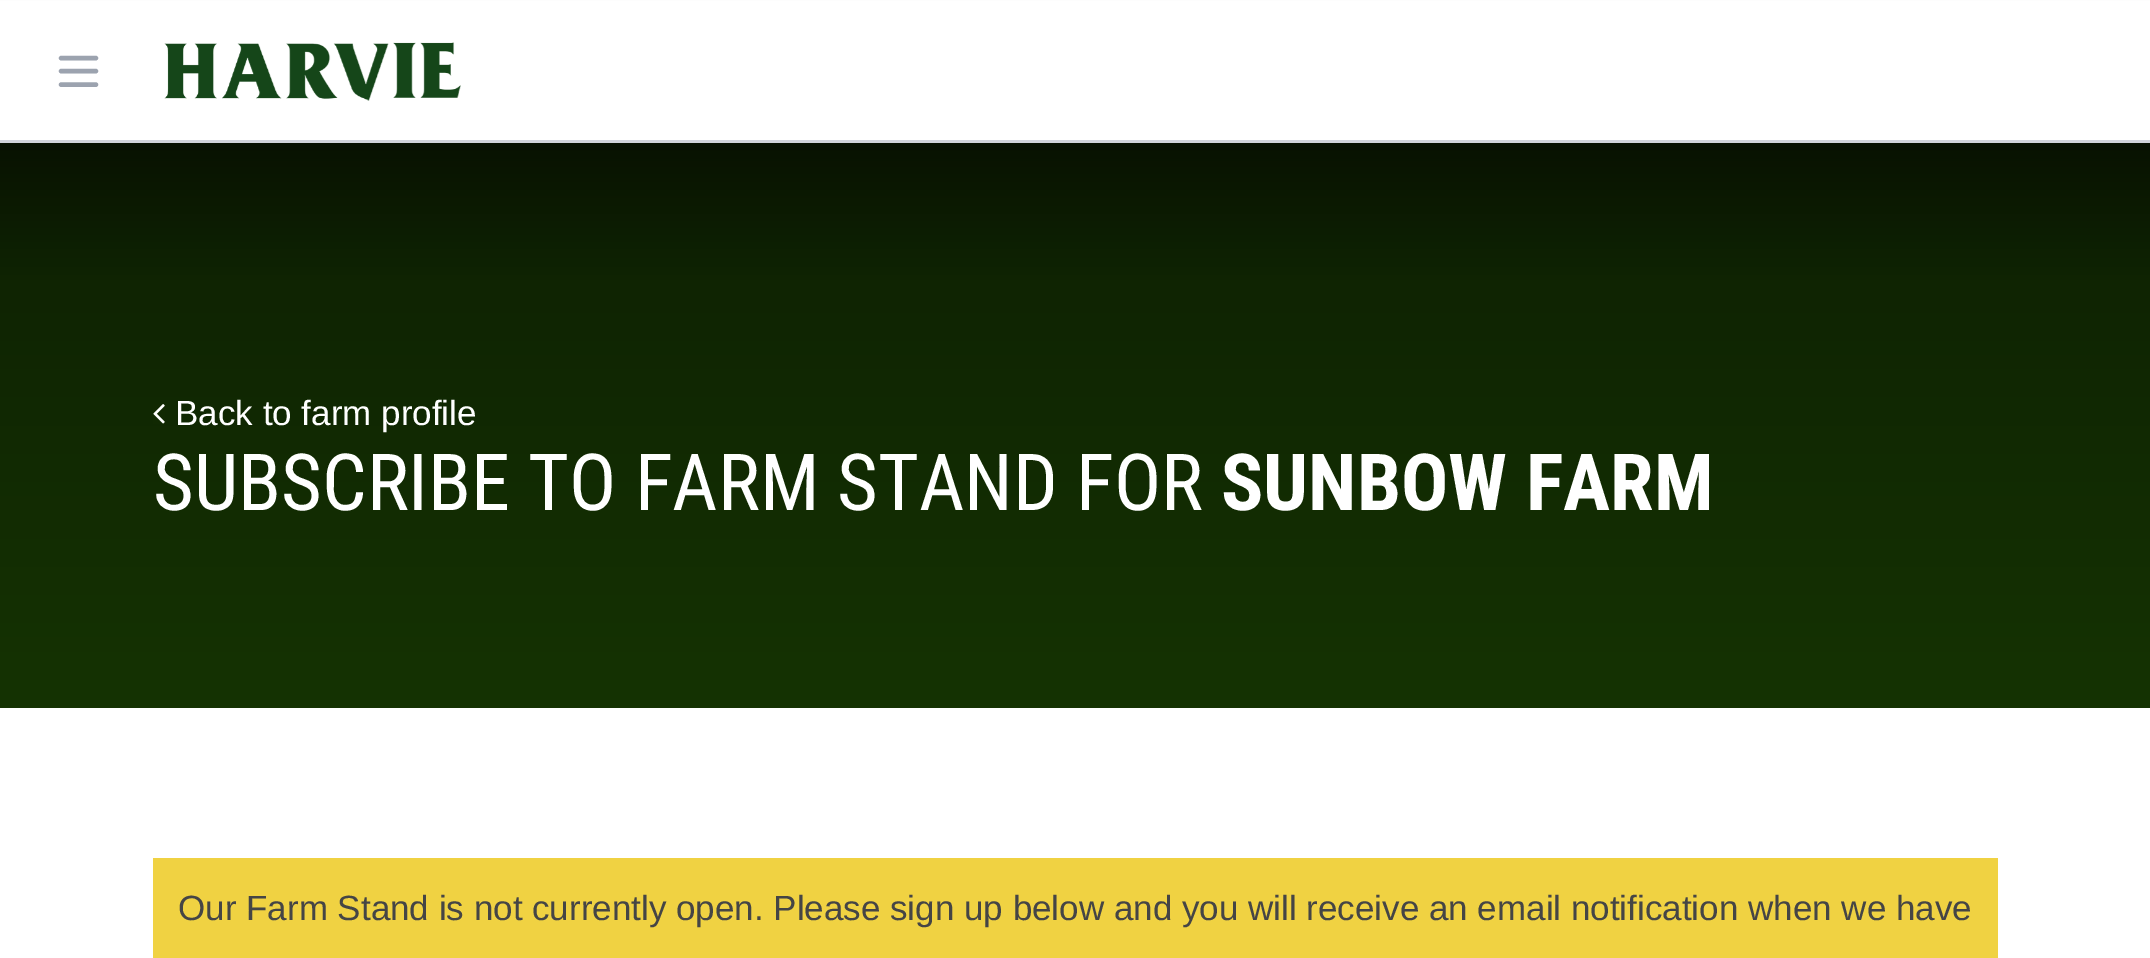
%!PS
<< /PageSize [2150 958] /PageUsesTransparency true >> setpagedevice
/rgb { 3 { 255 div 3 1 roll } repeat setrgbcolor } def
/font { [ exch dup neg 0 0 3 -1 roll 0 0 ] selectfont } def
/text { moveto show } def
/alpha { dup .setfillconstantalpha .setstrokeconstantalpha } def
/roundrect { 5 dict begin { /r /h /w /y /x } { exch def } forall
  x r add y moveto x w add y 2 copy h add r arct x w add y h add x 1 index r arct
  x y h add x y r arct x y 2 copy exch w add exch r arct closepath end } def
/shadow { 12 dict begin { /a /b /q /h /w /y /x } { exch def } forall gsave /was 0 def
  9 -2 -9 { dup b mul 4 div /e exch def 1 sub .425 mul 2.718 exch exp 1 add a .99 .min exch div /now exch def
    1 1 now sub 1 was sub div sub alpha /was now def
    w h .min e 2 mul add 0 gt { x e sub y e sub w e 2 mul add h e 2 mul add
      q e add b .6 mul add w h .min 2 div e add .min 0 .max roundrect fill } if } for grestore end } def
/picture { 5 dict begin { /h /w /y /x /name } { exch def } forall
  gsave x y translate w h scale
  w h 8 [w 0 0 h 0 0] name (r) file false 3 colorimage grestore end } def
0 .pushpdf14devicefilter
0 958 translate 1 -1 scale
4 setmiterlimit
255 255 255 rgb
0 0 2150 958 rectfill
gsave 0 143 moveto 2150 0 rlineto 0 565 rlineto -2150 0 rlineto closepath clip newpath
<< /ShadingType 2 /ColorSpace /DeviceRGB /Coords [1075 142 1075 708] /Extend [true true] /Function << /FunctionType 3 /Domain [0 1] /Functions [<< /FunctionType 2 /Domain [0 1] /C0 [0.031 0.071 0.004] /C1 [0.059 0.141 0.008] /N 1 >> << /FunctionType 2 /Domain [0 1] /C0 [0.059 0.141 0.008] /C1 [0.082 0.2 0.012] /N 1 >>] /Bounds [0.25] /Encode [0 1 0 1] >> >> shfill grestore
0 0 0 rgb
0 3 2150 142 0 2.5 0.05 shadow
255 255 255 rgb
0 1 2150 139 rectfill
209 213 219 rgb
0 140 2150 3 rectfill
156 163 175 rgb
4.4 setlinewidth
1 setlinecap
1 setlinejoin
61 58 moveto 35 0 rlineto 61 71 moveto 35 0 rlineto 61 84.5 moveto 35 0 rlineto stroke
(img_01.rgb) 164 42 297 59 picture
(img_02.rgb) 153 404 12 20 picture
240 210 66 rgb
153 858 1845 100 rectfill
/LiberationSans-Regular 35 font
255 255 255 rgb
(Back to farm profile) 175 425 text
/RobotoCondensed-Regular 78.75 font
(SUBSCRIBE TO FARM STAND FOR) 153 510 text
/RobotoCondensed-Bold 78.75 font
(SUNBOW FARM) 1221 510 text
/LiberationSans-Regular 35 font
69 69 69 rgb
(Our Farm Stand is not currently open. Please sign up below and you will receive an email notification when we have) 178 920 text
.poppdf14devicefilter showpage
